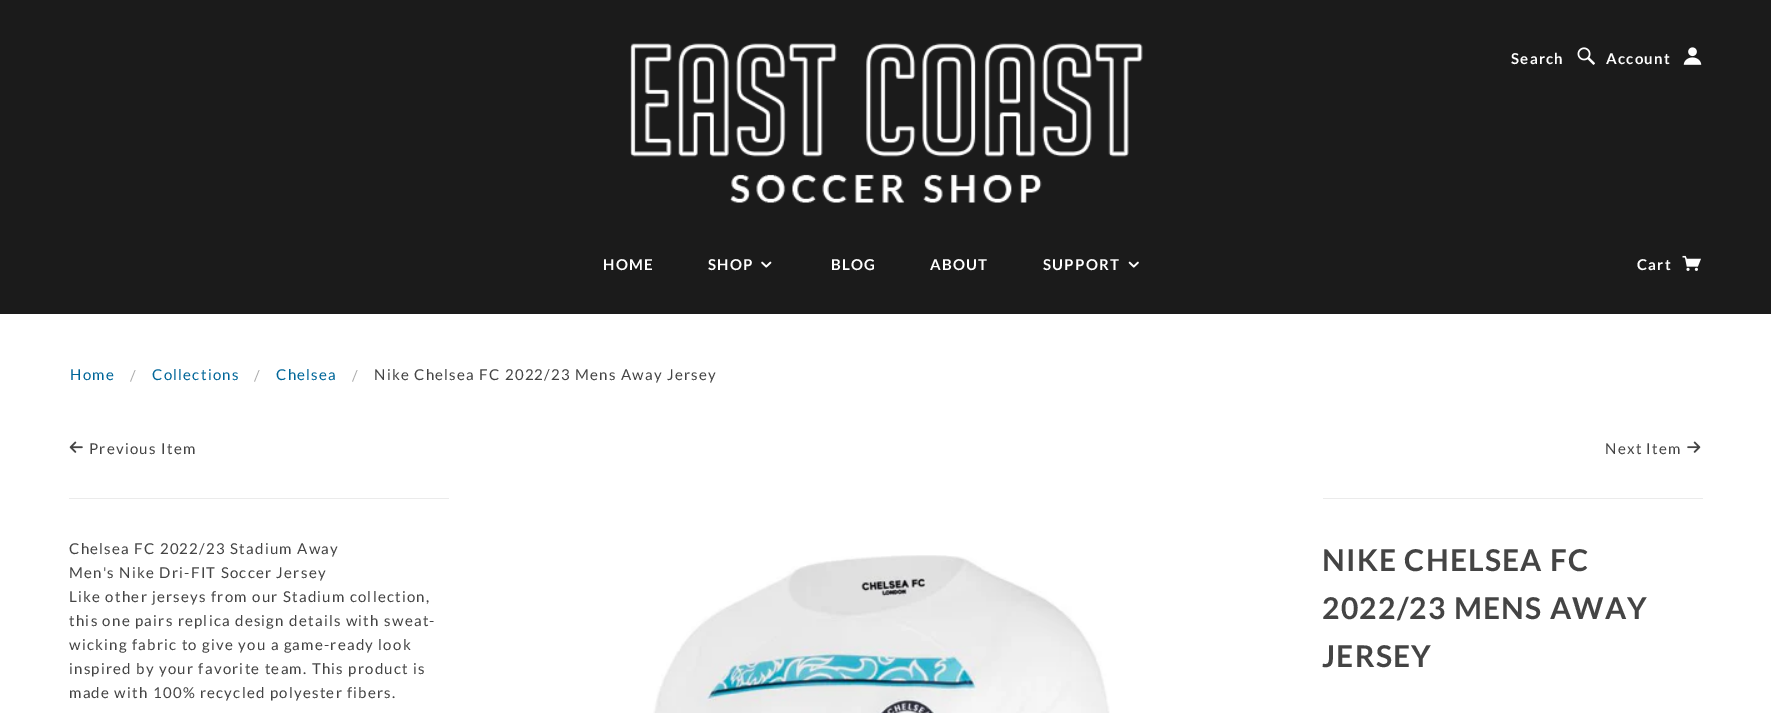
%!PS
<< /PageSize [1771 713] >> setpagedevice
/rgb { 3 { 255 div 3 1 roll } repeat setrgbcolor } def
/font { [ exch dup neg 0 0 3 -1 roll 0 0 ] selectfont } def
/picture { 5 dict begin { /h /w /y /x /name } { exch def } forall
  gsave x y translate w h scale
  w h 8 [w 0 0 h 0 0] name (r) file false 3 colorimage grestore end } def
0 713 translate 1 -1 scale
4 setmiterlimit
255 255 255 rgb
0 0 1771 713 rectfill
27 27 27 rgb
0 0 1771 314 rectfill
(img_01.rgb) 630 43 513 160 picture
(img_02.rgb) 1577 47 18 18 picture
(img_03.rgb) 1683 47 19 18 picture
(img_04.rgb) 761 261 11 7 picture
(img_05.rgb) 1128 261 11 7 picture
(img_06.rgb) 1682 255 19 16 picture
(img_07.rgb) 69 441 14 12 picture
235 235 235 rgb
69 498 380 1 rectfill
(img_08.rgb) 1687 441 14 12 picture
1323 498 380 1 rectfill
(img_09.rgb) 653 555 457 158 picture
/Lato-Bold 15 font
255 255 255 rgb
1511 64 moveto 1.25 0 (Search) ashow
1606 64 moveto 1.25 0 (Account) ashow
603 270 moveto 1.25 0 (HOME) ashow
708 270 moveto 1.25 0 (SHOP) ashow
831 270 moveto 1.25 0 (BLOG) ashow
930 270 moveto 1.25 0 (ABOUT) ashow
1043 270 moveto 1.25 0 (SUPPORT) ashow
1637 270 moveto 1.25 0 (Cart) ashow
/Lato-Regular 15 font
0 102 153 rgb
70 380 moveto 1.25 0 (Home) ashow
170 170 170 rgb
130 381 moveto 1.25 0 (/) ashow
0 102 153 rgb
152 380 moveto 1.25 0 (Collections) ashow
170 170 170 rgb
254 381 moveto 1.25 0 (/) ashow
0 102 153 rgb
276 380 moveto 1.25 0 (Chelsea) ashow
170 170 170 rgb
352 381 moveto 1.25 0 (/) ashow
68 68 68 rgb
374 380 moveto 1.25 0 (Nike Chelsea FC 2022/23 Mens Away Jersey) ashow
89 454 moveto 1.25 0 (Previous Item) ashow
1605 454 moveto 1.25 0 (Next Item) ashow
69 554 moveto 1.25 0 (Chelsea FC 2022/23 Stadium Away) ashow
69 578 moveto 1.25 0 (Men's Nike Dri-FIT Soccer Jersey) ashow
69 602 moveto 1.25 0 (Like other jerseys from our Stadium collection,) ashow
69 626 moveto 1.25 0 (this one pairs replica design details with sweat-) ashow
69 650 moveto 1.25 0 (wicking fabric to give you a game-ready look) ashow
69 674 moveto 1.25 0 (inspired by your favorite team. This product is) ashow
69 698 moveto 1.25 0 (made with 100% recycled polyester fibers.) ashow
/Lato-Bold 30 font
1322 571 moveto 1.25 0 (NIKE CHELSEA FC) ashow
1322 619 moveto 1.25 0 (2022/23 MENS AWAY) ashow
1322 667 moveto 1.25 0 (JERSEY) ashow
showpage
